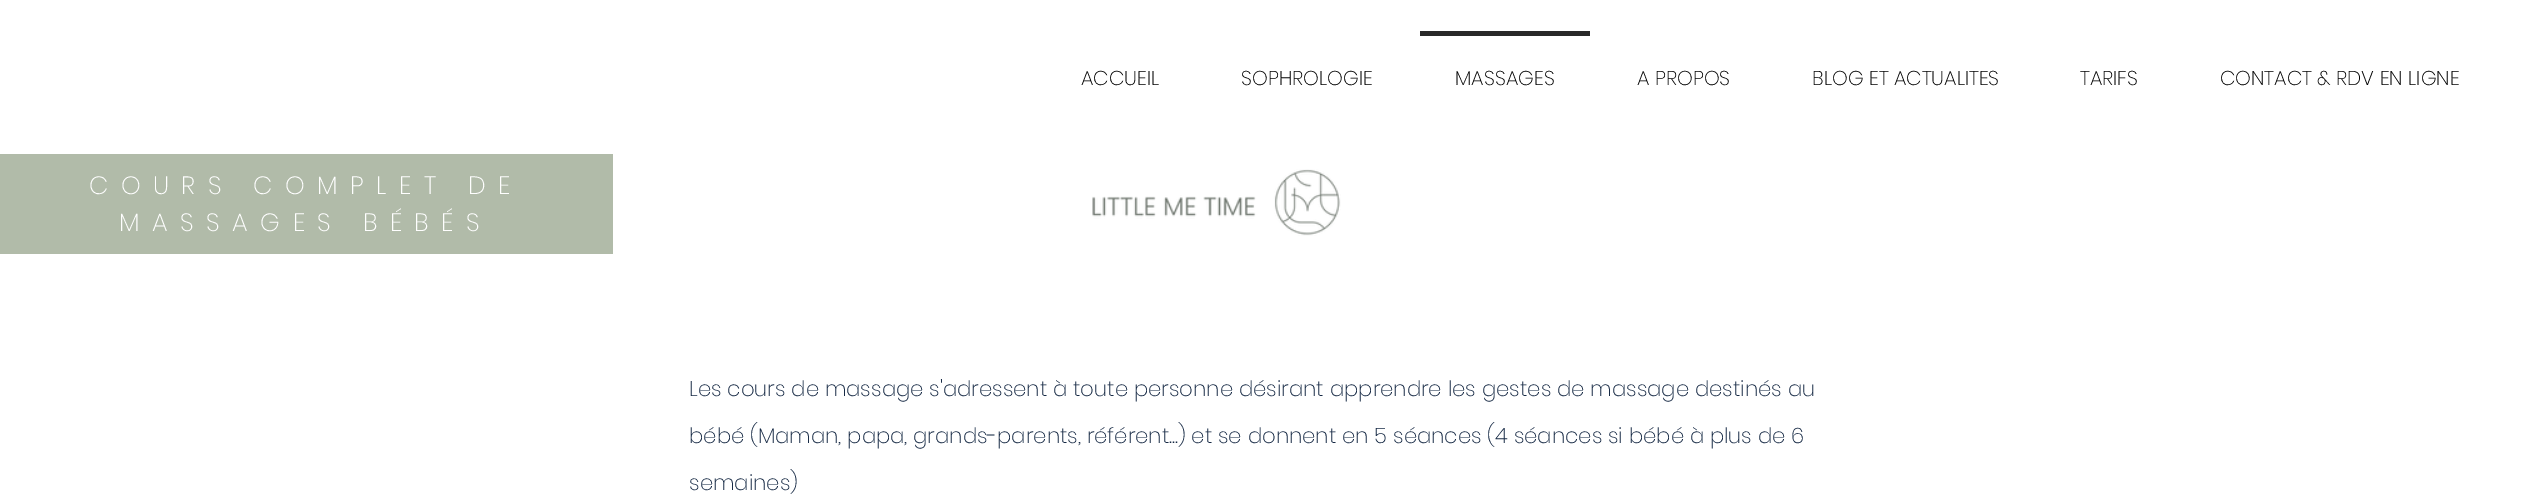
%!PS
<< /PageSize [2523 497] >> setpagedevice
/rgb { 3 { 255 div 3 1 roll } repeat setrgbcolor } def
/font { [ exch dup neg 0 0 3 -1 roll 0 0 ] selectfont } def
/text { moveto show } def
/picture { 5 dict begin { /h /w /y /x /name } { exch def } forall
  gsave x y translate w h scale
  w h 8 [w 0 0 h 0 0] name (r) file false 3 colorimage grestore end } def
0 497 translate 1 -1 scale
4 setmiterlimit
255 255 255 rgb
0 0 2523 497 rectfill
41 41 41 rgb
1420 31 170 5 rectfill
177 187 169 rgb
0 154 613 100 rectfill
(img_01.rgb) 1092 169 249 67 picture
/Poppins-ExtraLight 20 font
0 0 0 rgb
(ACCUEIL) 1081 85 text
(SOPHROLOGIE) 1241 85 text
(MASSAGES) 1455 85 text
(A PROPOS) 1637 85 text
(BLOG ET ACTUALITES) 1812 85 text
(TARIFS) 2080 85 text
(CONTACT & RDV EN LIGNE) 2220 85 text
/Poppins-ExtraLight 25 font
255 255 255 rgb
89 194 moveto 12.5 0 (COURS COMPLET DE) ashow
119 231 moveto 12.5 0 (MASSAGES BÉBÉS) ashow
/Poppins-ExtraLight 21.25 font
23 42 69 rgb
(Les cours de massage s'adressent à toute personne désirant apprendre les gestes de massage destinés au) 689 396 text
(bébé \(Maman, papa, grands-parents, référent...\) et se donnent en 5 séances \(4 séances si bébé à plus de 6) 689 443 text
(semaines\)) 689 490 text
showpage
